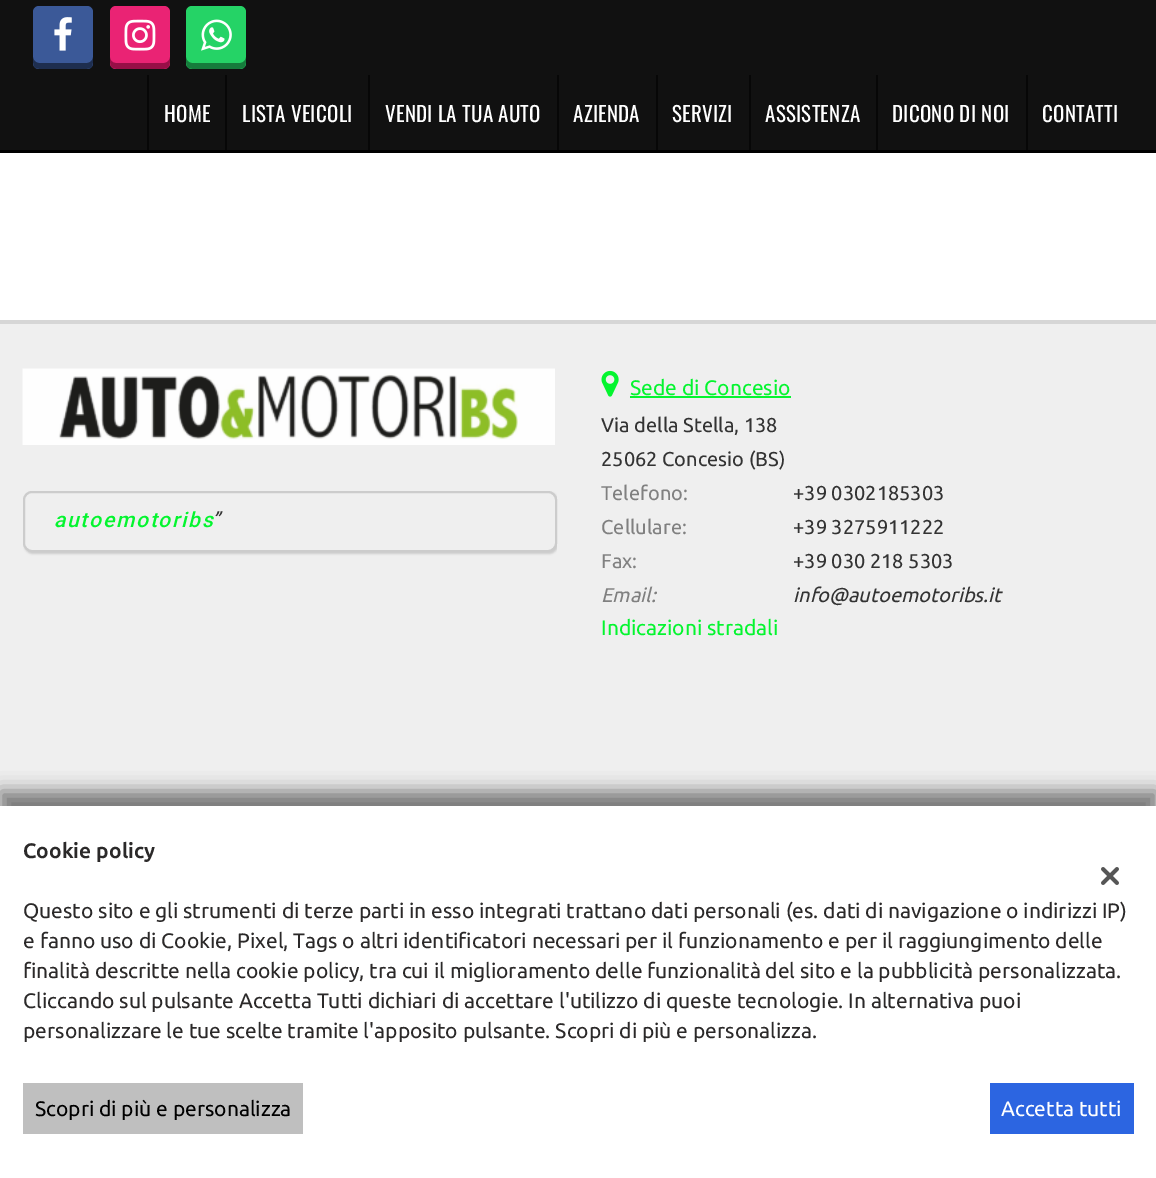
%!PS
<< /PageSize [1156 1178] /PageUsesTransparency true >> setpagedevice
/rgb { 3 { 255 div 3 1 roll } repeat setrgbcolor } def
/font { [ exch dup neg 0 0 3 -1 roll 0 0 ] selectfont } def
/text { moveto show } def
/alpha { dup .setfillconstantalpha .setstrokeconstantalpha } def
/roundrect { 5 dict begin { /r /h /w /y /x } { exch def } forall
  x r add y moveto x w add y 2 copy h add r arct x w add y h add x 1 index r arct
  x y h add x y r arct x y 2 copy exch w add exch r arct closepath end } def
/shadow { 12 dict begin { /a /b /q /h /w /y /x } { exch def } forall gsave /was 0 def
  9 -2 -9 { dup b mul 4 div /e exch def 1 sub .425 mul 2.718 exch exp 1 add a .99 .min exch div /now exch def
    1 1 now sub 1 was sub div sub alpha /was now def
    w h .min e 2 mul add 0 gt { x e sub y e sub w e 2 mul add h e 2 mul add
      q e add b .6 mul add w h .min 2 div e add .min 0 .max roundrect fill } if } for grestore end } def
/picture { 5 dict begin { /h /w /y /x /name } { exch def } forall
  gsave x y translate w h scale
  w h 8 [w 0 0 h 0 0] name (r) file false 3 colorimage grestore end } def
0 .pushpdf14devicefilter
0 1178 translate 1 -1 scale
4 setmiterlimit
255 255 255 rgb
0 0 1156 1178 rectfill
0 0 0 rgb
0 150 moveto 0 3 rlineto 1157 0 rlineto 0 -150 rlineto -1 0 rlineto 0 147 rlineto closepath fill
17 17 17 rgb
0 0 1156 150 rectfill
59 89 152 rgb
33 6 60 63 6 roundrect fill
30 46 79 rgb
33 57 moveto 0 12 1 12 14 12 rcurveto 32 0 rlineto 13 0 14 0 14 -12 rcurveto 0 3 -3 6 -6 6 rcurveto -48 0 rlineto -3 0 -6 -3 -6 -6 rcurveto closepath fill
(img_01.rgb) 54 17 18 34 picture
234 35 116 rgb
110 6 60 63 6 roundrect fill
152 15 71 rgb
110 57 moveto 0 12 1 12 14 12 rcurveto 32 0 rlineto 13 0 14 0 14 -12 rcurveto 0 3 -3 6 -6 6 rcurveto -48 0 rlineto -4 0 -6 -3 -6 -6 rcurveto closepath fill
(img_02.rgb) 124 19 32 32 picture
37 211 102 rgb
186 6 60 63 6 roundrect fill
22 124 60 rgb
186 57 moveto 0 12 1 12 14 12 rcurveto 32 0 rlineto 13 0 14 0 14 -12 rcurveto 0 3 -3 6 -6 6 rcurveto -48 0 rlineto -3 0 -6 -3 -6 -6 rcurveto closepath fill
(img_03.rgb) 201 19 31 32 picture
7 7 7 rgb
147 75 2 75 rectfill
225 75 2 75 rectfill
368 75 2 75 rectfill
557 75 2 75 rectfill
656 75 2 75 rectfill
749 75 2 75 rectfill
876 75 2 75 rectfill
1026 75 2 75 rectfill
214 214 214 rgb
0 320 1156 4 rectfill
239 239 239 rgb
0 324 1156 482 rectfill
(img_04.rgb) 22 368 533 77 picture
gsave
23 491 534 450 rectclip
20 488 moveto 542 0 rlineto 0 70 rlineto -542 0 rlineto closepath 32 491 moveto 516 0 rlineto 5 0 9 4 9 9 rcurveto 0 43 rlineto 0 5 -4 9 -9 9 rcurveto -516 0 rlineto -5 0 -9 -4 -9 -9 rcurveto 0 -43 rlineto 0 -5 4 -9 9 -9 rcurveto closepath eoclip newpath
204 204 204 rgb
24 492 534 62 9 1 1 shadow
grestore
204 204 204 rgb
2 setlinewidth
24 492 532 59 8 roundrect stroke
(img_05.rgb) 601 370 18 27 picture
4 245 47 rgb
630 396 161 2 rectfill
0 0 0 rgb
0 791 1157 373 0 9 0.5 shadow
255 255 255 rgb
0 806 1156 372 rectfill
191 191 191 rgb
23 1083 280 51 rectfill
44 101 225 rgb
990 1083 144 51 rectfill
(img_06.rgb) 1101 867 18 18 picture
/Oswald-Regular 21 font
255 255 255 rgb
164 122 moveto 0.25 0 (HOME) ashow
242 122 moveto 0.25 0 (LISTA VEICOLI) ashow
385 122 moveto 0.25 0 (VENDI LA TUA AUTO) ashow
573 122 moveto 0.25 0 (AZIENDA) ashow
672 122 moveto 0.25 0 (SERVIZI) ashow
765 122 moveto 0.25 0 (ASSISTENZA) ashow
892 122 moveto 0.25 0 (DICONO DI NOI) ashow
1042 122 moveto 0.25 0 (CONTATTI) ashow
/Roboto-MediumItalic 21 font
4 245 47 rgb
54 527 moveto 1.75 0 (autoemotoribs) ashow
/Roboto-Italic 21 font
51 51 51 rgb
212 527 moveto 1.75 0 (”) ashow
/Ubuntu-Regular 21 font
4 245 47 rgb
(Sede di Concesio) 630 395 text
/Ubuntu-Regular 20 font
51 51 51 rgb
(Via della Stella, 138) 601 432 text
(25062 Concesio \(BS\)) 601 466 text
128 128 128 rgb
(Telefono:) 601 500 text
51 51 51 rgb
(+39 0302185303) 793 500 text
128 128 128 rgb
(Cellulare:) 601 534 text
51 51 51 rgb
(+39 3275911222) 793 534 text
128 128 128 rgb
(Fax:) 601 568 text
51 51 51 rgb
(+39 030 218 5303) 793 568 text
/Ubuntu-Italic 20 font
128 128 128 rgb
(Email:) 601 602 text
51 51 51 rgb
(info@autoemotoribs.it) 793 602 text
/Ubuntu-Regular 21 font
4 245 47 rgb
(Indicazioni stradali) 601 635 text
/Ubuntu-Bold 21 font
43 41 41 rgb
(Cookie policy) 23 858 text
/Ubuntu-Regular 21 font
(Questo sito e gli strumenti di terze parti in esso integrati trattano dati personali \(es. dati di navigazione o indirizzi IP\)) 23 918 text
(e fanno uso di Cookie, Pixel, Tags o altri identificatori necessari per il funzionamento e per il raggiungimento delle) 23 948 text
(finalità descritte nella cookie policy, tra cui il miglioramento delle funzionalità del sito e la pubblicità personalizzata.) 23 978 text
(Cliccando sul pulsante Accetta Tutti dichiari di accettare l'utilizzo di queste tecnologie. In alternativa puoi) 23 1008 text
(personalizzare le tue scelte tramite l'apposito pulsante. Scopri di più e personalizza.) 23 1038 text
0 0 0 rgb
(Scopri di più e personalizza) 35 1116 text
255 255 255 rgb
(Accetta tutti) 1001 1116 text
.poppdf14devicefilter showpage
